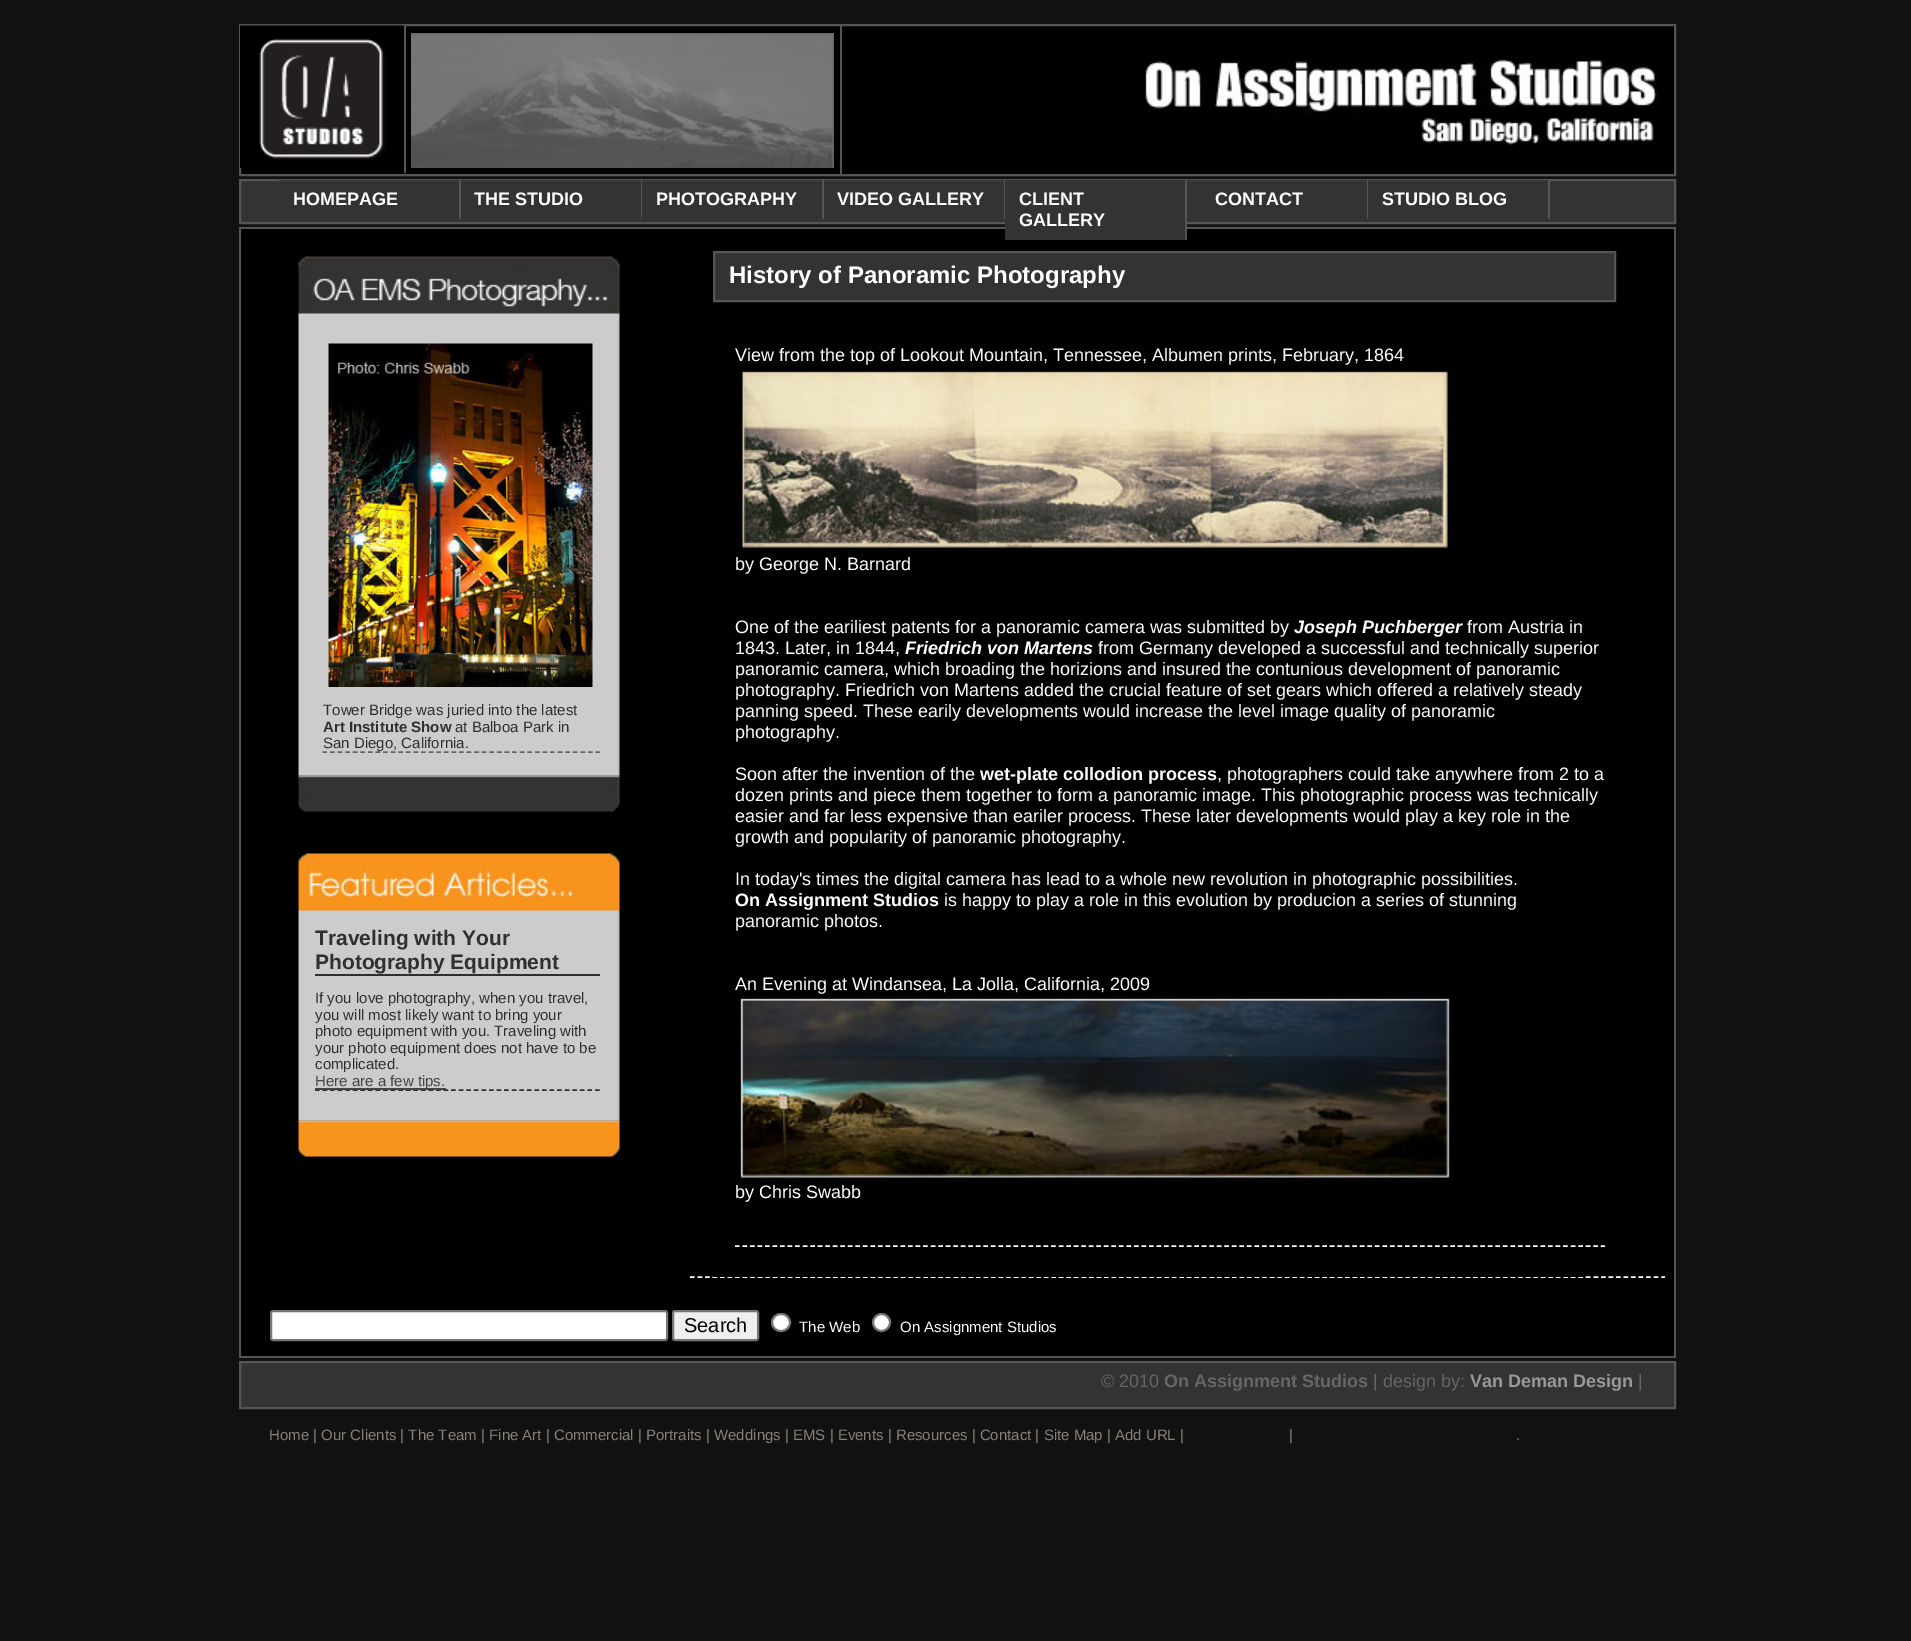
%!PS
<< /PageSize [1911 1641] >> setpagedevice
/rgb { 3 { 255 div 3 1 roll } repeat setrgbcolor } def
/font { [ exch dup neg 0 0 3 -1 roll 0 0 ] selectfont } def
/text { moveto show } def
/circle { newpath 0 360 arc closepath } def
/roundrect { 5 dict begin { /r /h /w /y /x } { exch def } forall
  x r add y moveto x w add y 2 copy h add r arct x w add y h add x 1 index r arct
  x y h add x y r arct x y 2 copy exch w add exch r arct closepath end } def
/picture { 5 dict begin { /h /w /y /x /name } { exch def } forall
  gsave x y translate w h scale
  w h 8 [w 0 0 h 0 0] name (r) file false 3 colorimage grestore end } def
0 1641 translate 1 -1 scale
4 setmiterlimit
17 17 17 rgb
0 0 1911 1641 rectfill
0 0 0 rgb
240 25 moveto 1435 0 rlineto 0 150 rlineto -1435 0 rlineto closepath gsave fill grestore
85 85 85 rgb
2 setlinewidth
stroke
(img_01.rgb) 240 25 164 143 picture
404 26 2 147 rectfill
(img_02.rgb) 411 33 423 135 picture
840 26 2 148 rectfill
(img_03.rgb) 1134 59 526 86 picture
51 51 51 rgb
240 180 moveto 1435 0 rlineto 0 43 rlineto -1435 0 rlineto closepath gsave fill grestore
85 85 85 rgb
stroke
459 180 2 39 rectfill
51 51 51 rgb
279 180 180 1 rectfill
85 85 85 rgb
641 180 1 39 rectfill
51 51 51 rgb
461 180 180 1 rectfill
85 85 85 rgb
822 180 2 39 rectfill
51 51 51 rgb
642 180 180 1 rectfill
85 85 85 rgb
1004 180 1 39 rectfill
51 51 51 rgb
824 180 180 1 rectfill
0 0 0 rgb
241 229 1433 1127 rectfill
85 85 85 rgb
239 227 1437 2 rectfill
1185 180 2 60 rectfill
51 51 51 rgb
1005 180 180 60 rectfill
85 85 85 rgb
1367 180 1 39 rectfill
51 51 51 rgb
1187 180 180 1 rectfill
85 85 85 rgb
1548 180 2 39 rectfill
51 51 51 rgb
1368 180 180 1 rectfill
85 85 85 rgb
1674 227 2 1131 rectfill
239 227 2 1051 rectfill
(img_04.rgb) 297 255 325 59 picture
(img_05.rgb) 297 313 325 463 picture
(img_06.rgb) 328 343 265 344 picture
102 102 102 rgb
1.5 setlinewidth
[4.5 3.09] 0 setdash
322.5 752 moveto 277.5 0 rlineto stroke
(img_07.rgb) 296 775 326 1 picture
(img_08.rgb) 296 775 326 37 picture
(img_09.rgb) 297 852 324 58 picture
(img_10.rgb) 296 910 326 1 picture
(img_11.rgb) 296 910 326 211 picture
47 47 47 rgb
315 974 285 2 rectfill
[4.5 3.07] 0 setdash
315 1090 moveto 285 0 rlineto stroke
68 68 68 rgb
315 1088 131 2 rectfill
(img_12.rgb) 296 1120 326 37 picture
(img_13.rgb) 297 1120 324 1 picture
255 255 255 rgb
[4.5 3.03] 0 setdash
690 1277 moveto 975 0 rlineto stroke
0 0 0 rgb
713 1276 870 1 rectfill
51 51 51 rgb
714 252 moveto 901 0 rlineto 0 49 rlineto -901 0 rlineto closepath gsave fill grestore
85 85 85 rgb
2 setlinewidth
[] 0 setdash
stroke
255 255 255 rgb
1.5 setlinewidth
[4.5 3.03] 0 setdash
735 1246 moveto 870 0 rlineto stroke
(img_14.rgb) 735 366 720 188 picture
(img_15.rgb) 735 995 720 187 picture
85 85 85 rgb
239 1356 1437 2 rectfill
239 1278 2 80 rectfill
255 255 255 rgb
271 1311 396 29 2 roundrect gsave fill grestore
118 118 118 rgb
2 setlinewidth
[] 0 setdash
stroke
239 239 239 rgb
673 1311 85 29 2 roundrect gsave fill grestore
118 118 118 rgb
stroke
255 255 255 rgb
772 1314 18 17 8.5 roundrect gsave fill grestore
118 118 118 rgb
stroke
255 255 255 rgb
881.5 1322.5 8.5 circle gsave fill grestore
118 118 118 rgb
stroke
51 51 51 rgb
240 1362 moveto 1435 0 rlineto 0 46 rlineto -1435 0 rlineto closepath gsave fill grestore
85 85 85 rgb
stroke
/LiberationSans-Bold 18 font
255 255 255 rgb
(HOMEPAGE) 293 205 text
(THE STUDIO) 474 205 text
(PHOTOGRAPHY) 656 205 text
(VIDEO GALLERY) 837 205 text
(CLIENT) 1019 205 text
(GALLERY) 1019 226 text
(CONTACT) 1215 205 text
(STUDIO BLOG) 1382 205 text
/LiberationSans-Regular 15 font
47 47 47 rgb
(Tower Bridge was juried into the latest) 323 715 text
/LiberationSans-Bold 15 font
(Art Institute Show) 323 732 text
/LiberationSans-Regular 15 font
(at Balboa Park in) 455 732 text
(San Diego, California.) 323 748 text
/LiberationSans-Bold 21 font
(Traveling with Your) 315 945 text
(Photography Equipment) 315 969 text
/LiberationSans-Regular 15 font
(If you love photography, when you travel,) 315 1003 text
(you will most likely want to bring your) 315 1020 text
(photo equipment with you. Traveling with) 315 1036 text
(your photo equipment does not have to be) 315 1053 text
(complicated.) 315 1069 text
68 68 68 rgb
(Here are a few tips.) 315 1086 text
/LiberationSans-Bold 24 font
255 255 255 rgb
(History of Panoramic Photography) 729 283 text
/LiberationSans-Regular 18 font
(View from the top of Lookout Mountain, Tennessee, Albumen prints, February, 1864) 735 361 text
(by George N. Barnard) 735 570 text
(One of the eariliest patents for a panoramic camera was submitted by) 735 633 text
/LiberationSans-BoldItalic 18 font
(Joseph Puchberger) 1294 633 text
/LiberationSans-Regular 18 font
(from Austria in) 1467 633 text
(1843. Later, in 1844,) 735 654 text
/LiberationSans-BoldItalic 18 font
(Friedrich von Martens) 905 654 text
/LiberationSans-Regular 18 font
(from Germany developed a successful and technically superior) 1098 654 text
(panoramic camera, which broading the horizions and insured the contunious development of panoramic) 735 675 text
(photography. Friedrich von Martens added the crucial feature of set gears which offered a relatively steady) 735 696 text
(panning speed. These earily developments would increase the level image quality of panoramic) 735 717 text
(photography.) 735 738 text
(Soon after the invention of the) 735 780 text
/LiberationSans-Bold 18 font
(wet-plate collodion process) 980 780 text
/LiberationSans-Regular 18 font
(, photographers could take anywhere from 2 to a) 1217 780 text
(dozen prints and piece them together to form a panoramic image. This photographic process was technically) 735 801 text
(easier and far less expensive than eariler process. These later developments would play a key role in the) 735 822 text
(growth and popularity of panoramic photography.) 735 843 text
(In today's times the digital camera has lead to a whole new revolution in photographic possibilities.) 735 885 text
/LiberationSans-Bold 18 font
(On Assignment Studios) 735 906 text
/LiberationSans-Regular 18 font
(is happy to play a role in this evolution by producion a series of stunning) 944 906 text
(panoramic photos.) 735 927 text
(An Evening at Windansea, La Jolla, California, 2009) 735 990 text
(by Chris Swabb) 735 1198 text
/LiberationSans-Regular 20 font
0 0 0 rgb
(Search) 684 1332 text
/LiberationSans-Regular 15 font
255 255 255 rgb
(The Web) 799 1332 text
(On Assignment Studios) 900 1332 text
/LiberationSans-Regular 18 font
102 102 102 rgb
(© 2010) 1101 1387 text
/LiberationSans-Bold 18 font
(On Assignment Studios) 1164 1387 text
/LiberationSans-Regular 18 font
(| design by:) 1373 1387 text
/LiberationSans-Bold 18 font
153 153 153 rgb
(Van Deman Design) 1470 1387 text
/LiberationSans-Regular 18 font
102 102 102 rgb
(|) 1638 1387 text
/LiberationSans-Regular 15 font
136 129 121 rgb
(Home | Our Clients | The Team | Fine Art | Commercial | Portraits | Weddings | EMS | Events | Resources | Contact | Site Map | Add URL |) 269 1440 text
(|) 1289 1440 text
(.) 1516 1440 text
showpage
